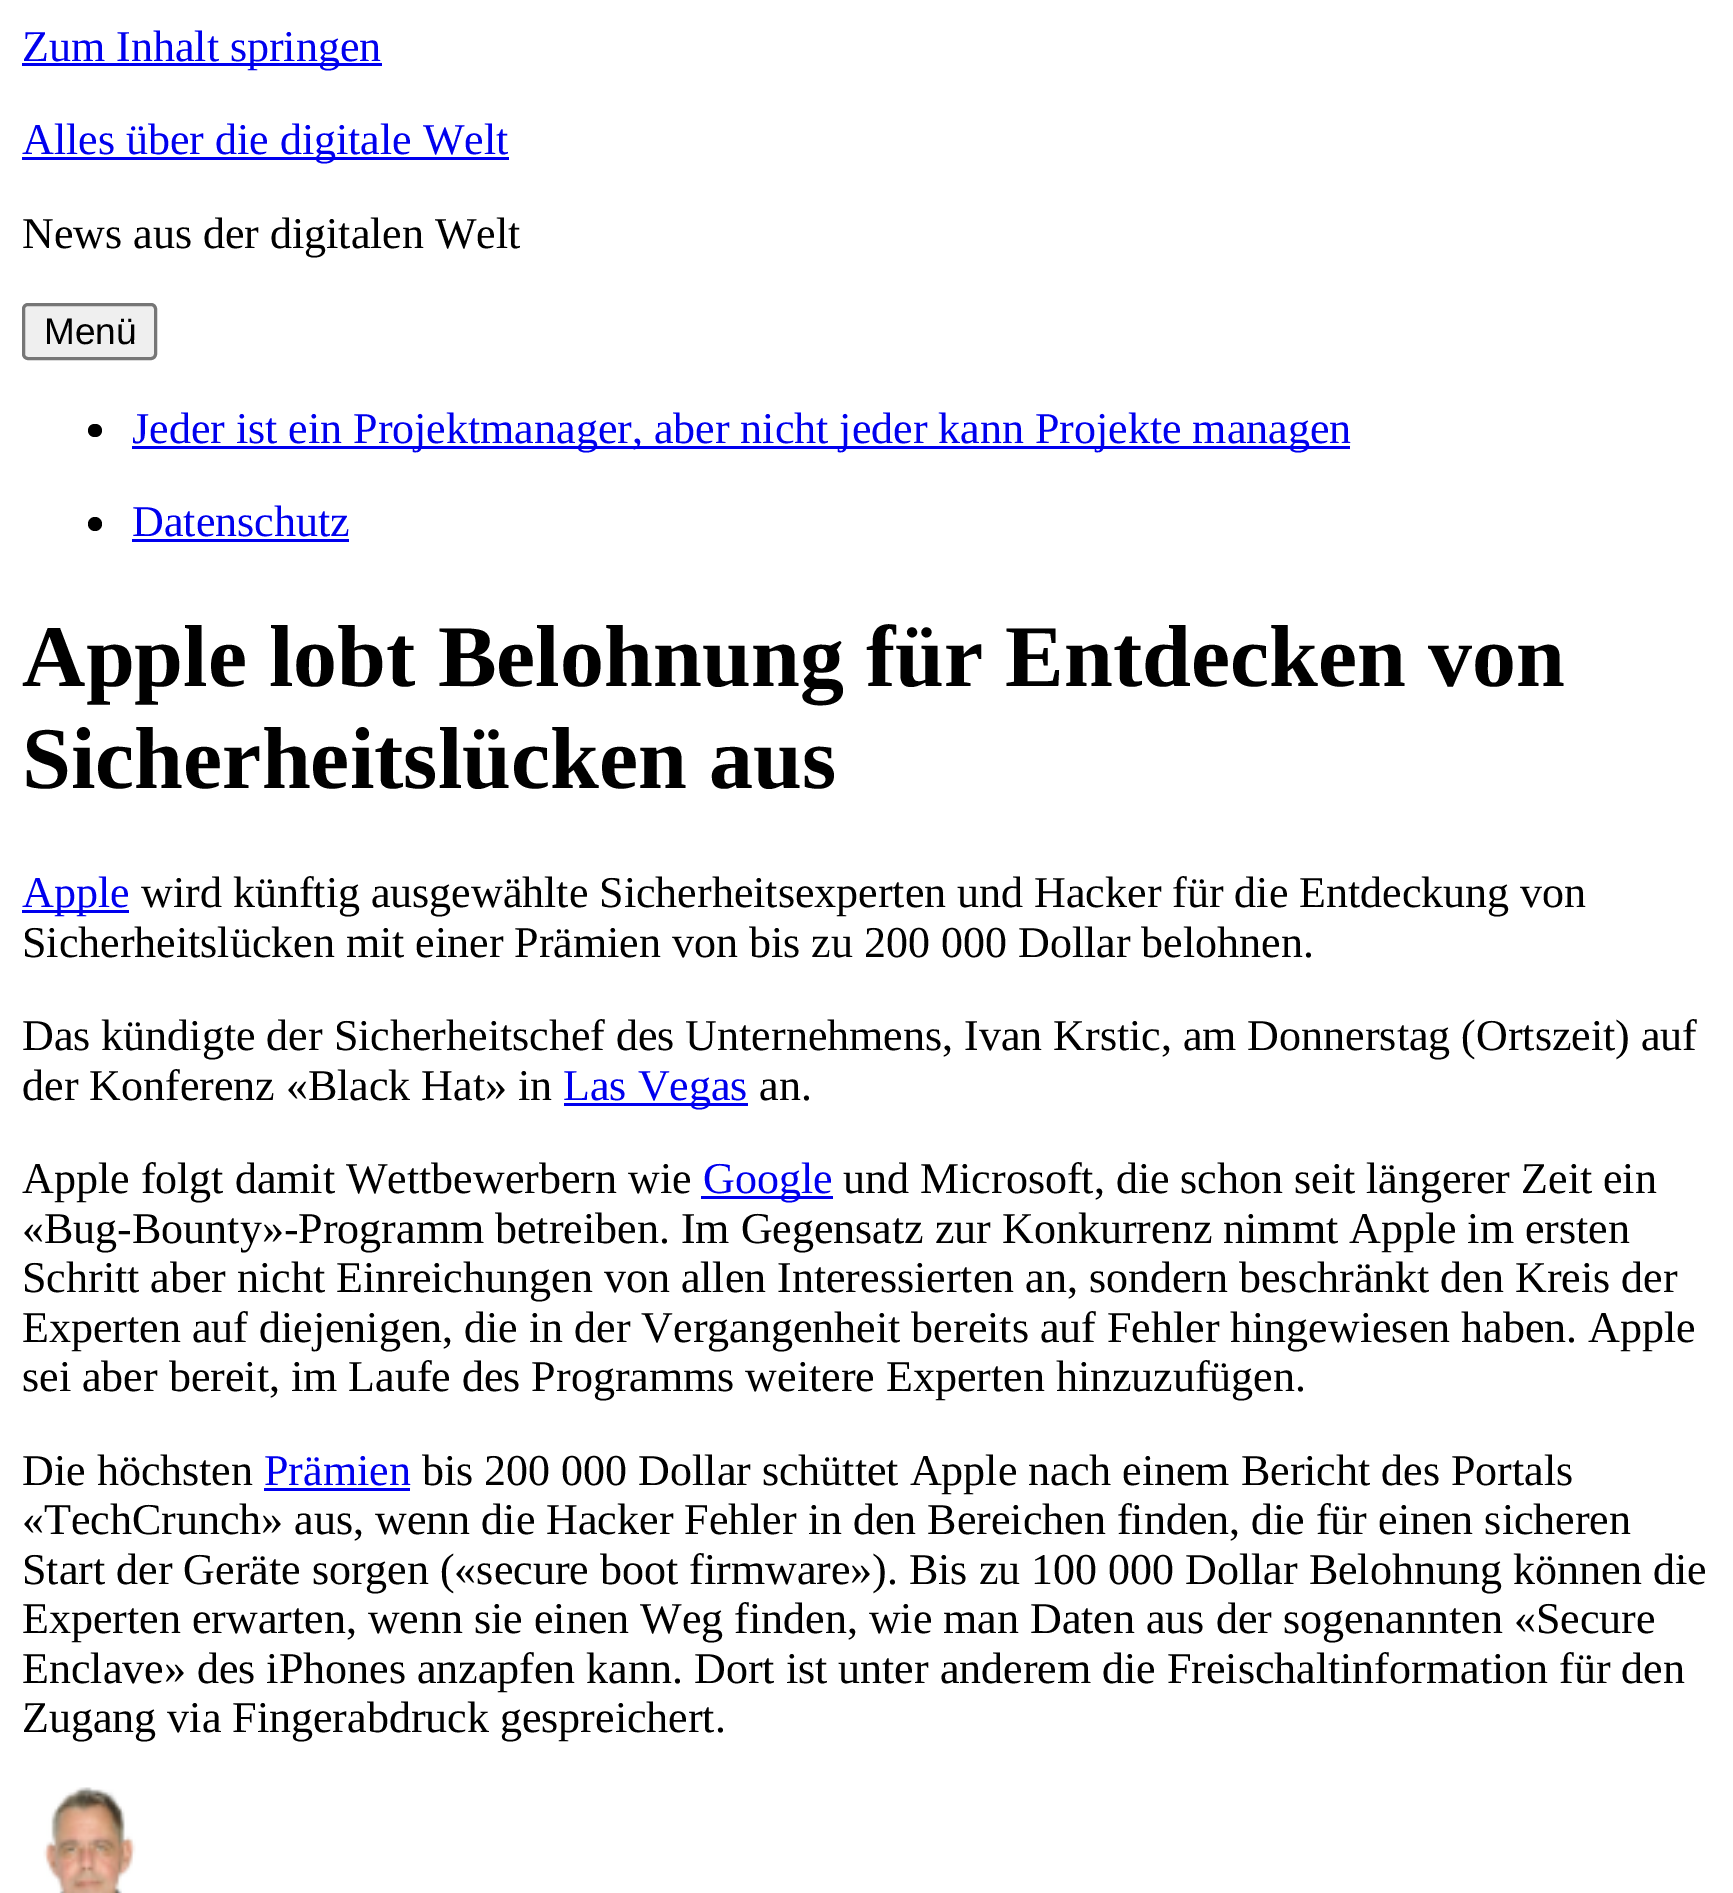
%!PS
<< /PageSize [1733 1893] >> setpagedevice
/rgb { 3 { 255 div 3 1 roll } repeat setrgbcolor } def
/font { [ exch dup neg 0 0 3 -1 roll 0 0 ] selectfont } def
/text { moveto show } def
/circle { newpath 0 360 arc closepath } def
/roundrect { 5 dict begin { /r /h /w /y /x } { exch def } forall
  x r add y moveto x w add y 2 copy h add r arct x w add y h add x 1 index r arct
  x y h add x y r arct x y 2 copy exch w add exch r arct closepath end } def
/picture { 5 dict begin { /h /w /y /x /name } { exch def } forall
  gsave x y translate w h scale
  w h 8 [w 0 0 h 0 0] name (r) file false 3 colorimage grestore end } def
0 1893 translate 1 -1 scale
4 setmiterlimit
255 255 255 rgb
0 0 1733 1893 rectfill
0 0 238 rgb
22 63 360 3 rectfill
22 157 487 3 rectfill
239 239 239 rgb
23.5 304.5 132 54 4.5 roundrect gsave fill grestore
118 118 118 rgb
3 setlinewidth
stroke
0 0 0 rgb
88 424 14 13 6.5 roundrect fill
0 0 238 rgb
132 446 1218 3 rectfill
0 0 0 rgb
95 524 7 circle fill
0 0 238 rgb
132 539 217 3 rectfill
22 910 107 3 rectfill
564 1103 184 3 rectfill
701 1196 132 3 rectfill
264 1488 146 3 rectfill
(img_01.rgb) 43 1787 93 106 picture
/LiberationSerif-Regular 44 font
(Zum Inhalt springen) 22 61 text
(Alles über die digitale Welt) 22 154 text
0 0 0 rgb
(News aus der digitalen Welt) 22 248 text
/LiberationSans-Regular 37 font
(Menü) 44 344 text
/LiberationSerif-Regular 44 font
0 0 238 rgb
(Jeder ist ein Projektmanager, aber nicht jeder kann Projekte managen) 132 443 text
(Datenschutz) 132 536 text
/LiberationSerif-Bold 88 font
0 0 0 rgb
(Apple lobt Belohnung für Entdecken von) 22 686 text
(Sicherheitslücken aus) 22 788 text
/LiberationSerif-Regular 44 font
0 0 238 rgb
(Apple) 22 907 text
0 0 0 rgb
(wird künftig ausgewählte Sicherheitsexperten und Hacker für die Entdeckung von) 141 907 text
(Sicherheitslücken mit einer Prämien von bis zu 200 000 Dollar belohnen.) 22 957 text
(Das kündigte der Sicherheitschef des Unternehmens, Ivan Krstic, am Donnerstag \(Ortszeit\) auf) 22 1050 text
(der Konferenz «Black Hat» in) 22 1100 text
0 0 238 rgb
(Las Vegas) 563 1100 text
0 0 0 rgb
(an.) 759 1100 text
(Apple folgt damit Wettbewerbern wie) 22 1193 text
0 0 238 rgb
(Google) 703 1193 text
0 0 0 rgb
(und Microsoft, die schon seit längerer Zeit ein) 843 1193 text
(«Bug-Bounty»-Programm betreiben. Im Gegensatz zur Konkurrenz nimmt Apple im ersten) 22 1243 text
(Schritt aber nicht Einreichungen von allen Interessierten an, sondern beschränkt den Kreis der) 22 1292 text
(Experten auf diejenigen, die in der Vergangenheit bereits auf Fehler hingewiesen haben. Apple) 22 1342 text
(sei aber bereit, im Laufe des Programms weitere Experten hinzuzufügen.) 22 1391 text
(Die höchsten) 22 1485 text
0 0 238 rgb
(Prämien) 264 1485 text
0 0 0 rgb
(bis 200 000 Dollar schüttet Apple nach einem Bericht des Portals) 422 1485 text
(«TechCrunch» aus, wenn die Hacker Fehler in den Bereichen finden, die für einen sicheren) 22 1534 text
(Start der Geräte sorgen \(«secure boot firmware»\). Bis zu 100 000 Dollar Belohnung können die) 22 1584 text
(Experten erwarten, wenn sie einen Weg finden, wie man Daten aus der sogenannten «Secure) 22 1633 text
(Enclave» des iPhones anzapfen kann. Dort ist unter anderem die Freischaltinformation für den) 22 1683 text
(Zugang via Fingerabdruck gespreichert.) 22 1732 text
showpage
